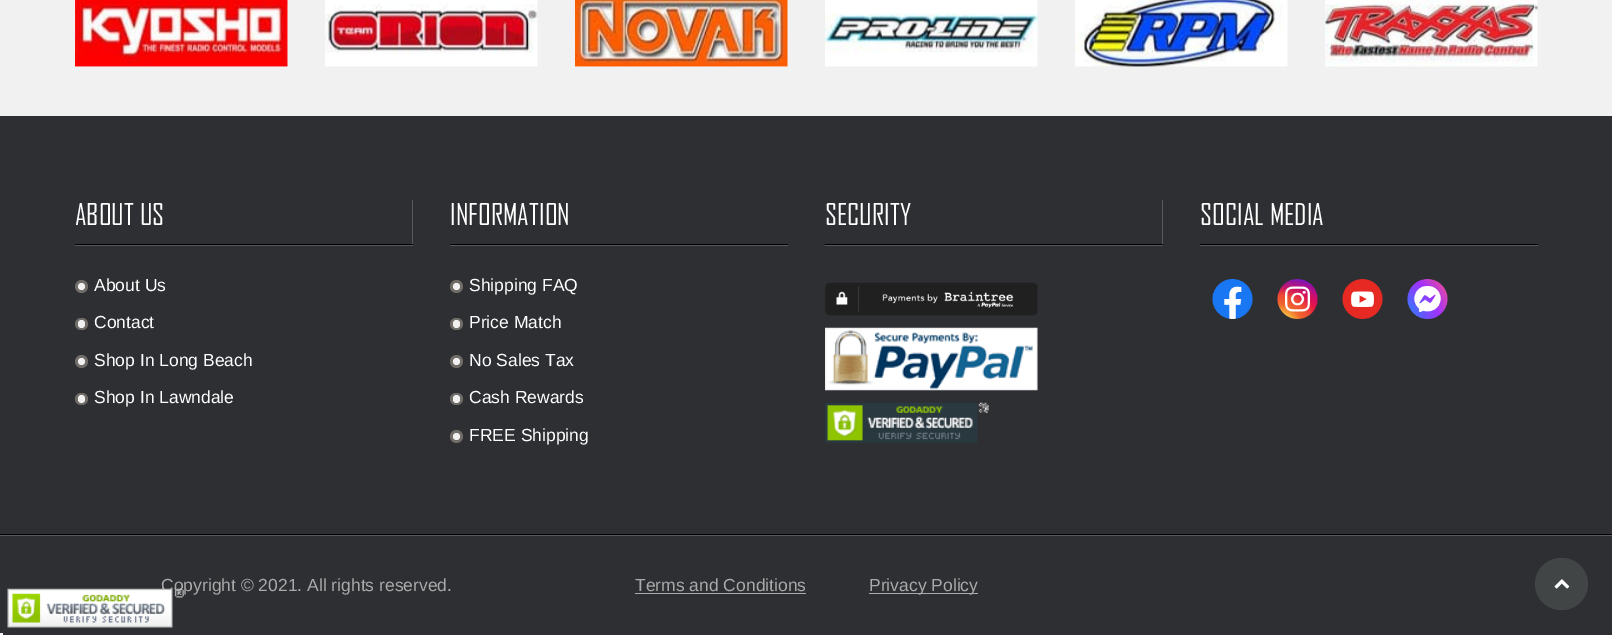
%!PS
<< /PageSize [1612 635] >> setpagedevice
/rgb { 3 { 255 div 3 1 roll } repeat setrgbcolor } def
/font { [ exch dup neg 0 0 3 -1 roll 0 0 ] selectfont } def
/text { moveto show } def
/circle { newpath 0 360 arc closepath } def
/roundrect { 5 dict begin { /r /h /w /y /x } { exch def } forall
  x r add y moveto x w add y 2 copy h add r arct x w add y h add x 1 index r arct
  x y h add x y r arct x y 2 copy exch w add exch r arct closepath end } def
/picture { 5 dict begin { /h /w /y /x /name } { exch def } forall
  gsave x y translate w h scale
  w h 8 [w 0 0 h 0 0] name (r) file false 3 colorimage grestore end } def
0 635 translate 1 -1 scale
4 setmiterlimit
241 241 241 rgb
0 0 1612 635 rectfill
(img_01.rgb) 75 0 213 67 picture
(img_02.rgb) 325 0 213 67 picture
(img_03.rgb) 575 0 213 67 picture
(img_04.rgb) 825 0 213 67 picture
(img_05.rgb) 1075 0 213 67 picture
(img_06.rgb) 1325 0 213 67 picture
46 47 51 rgb
0 116 1612 519 rectfill
88 89 92 rgb
0 535 moveto 0 1 rlineto 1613 0 rlineto 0 -418 rlineto -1 0 rlineto 0 417 rlineto closepath fill
0 0 0 rgb
0 534 1612 1 rectfill
88 89 92 rgb
75 245 moveto 0 1 rlineto 338 0 rlineto 0 -46 rlineto -1 0 rlineto 0 45 rlineto closepath fill
0 0 0 rgb
75 244 338 1 rectfill
112 108 104 rgb
81.5 286.5 6.5 circle fill
241 240 240 rgb
81.5 286.5 3.5 circle fill
112 108 104 rgb
75 318 13 12 6 roundrect fill
241 240 240 rgb
78 320 7 8 3.5 roundrect fill
112 108 104 rgb
81.5 361.5 6.5 circle fill
241 240 240 rgb
81.5 361.5 3.5 circle fill
112 108 104 rgb
75 393 13 12 6 roundrect fill
241 240 240 rgb
78 395 7 8 3.5 roundrect fill
88 89 92 rgb
450 245 moveto 0 1 rlineto 338 0 rlineto 0 -46 rlineto 0 45 rlineto closepath fill
0 0 0 rgb
450 244 338 1 rectfill
112 108 104 rgb
456.5 286.5 6.5 circle fill
241 240 240 rgb
456.5 286.5 3.5 circle fill
112 108 104 rgb
450 318 13 12 6 roundrect fill
241 240 240 rgb
453 320 7 8 3.5 roundrect fill
112 108 104 rgb
456.5 361.5 6.5 circle fill
241 240 240 rgb
456.5 361.5 3.5 circle fill
112 108 104 rgb
450 393 13 12 6 roundrect fill
241 240 240 rgb
453 395 7 8 3.5 roundrect fill
112 108 104 rgb
456.5 436.5 6.5 circle fill
241 240 240 rgb
456.5 436.5 3.5 circle fill
88 89 92 rgb
825 245 moveto 0 1 rlineto 338 0 rlineto 0 -46 rlineto -1 0 rlineto 0 45 rlineto closepath fill
0 0 0 rgb
825 244 338 1 rectfill
(img_07.rgb) 825 282 213 34 picture
(img_08.rgb) 825 327 213 64 picture
(img_09.rgb) 825 402 164 41 picture
88 89 92 rgb
1200 245 moveto 0 1 rlineto 338 0 rlineto 0 -46 rlineto 0 45 rlineto closepath fill
0 0 0 rgb
1200 244 338 1 rectfill
(img_10.rgb) 1212 279 41 40 picture
(img_11.rgb) 1277 279 41 40 picture
(img_12.rgb) 1342 279 41 40 picture
(img_13.rgb) 1407 279 41 40 picture
170 170 170 rgb
635 593 171 1 rectfill
869 593 109 1 rectfill
66 69 70 rgb
1535 558 53 52 26 roundrect fill
(img_14.rgb) 1554 579 16 10 picture
245 245 245 rgb
0 633 3 2 rectfill
/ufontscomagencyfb-Regular 28.75 font
255 255 255 rgb
(ABOUT US) 75 225 text
/LiberationSans-Regular 17.5 font
(About Us) 94 291 text
(Contact) 94 328 text
(Shop In Long Beach) 94 366 text
(Shop In Lawndale) 94 403 text
/ufontscomagencyfb-Regular 28.75 font
(INFORMATION) 450 225 text
/LiberationSans-Regular 17.5 font
(Shipping FAQ) 469 291 text
(Price Match) 469 328 text
(No Sales Tax) 469 366 text
(Cash Rewards) 469 403 text
(FREE Shipping) 469 441 text
/ufontscomagencyfb-Regular 28.75 font
(SECURITY) 825 225 text
(SOCIAL MEDIA) 1200 225 text
/LiberationSans-Regular 17.5 font
170 170 170 rgb
(Copyright © 2021. All rights reserved.) 161 591 text
(Terms and Conditions) 635 591 text
(Privacy Policy) 869 591 text
(img_15.rgb) 7 588 177 40 picture
showpage
